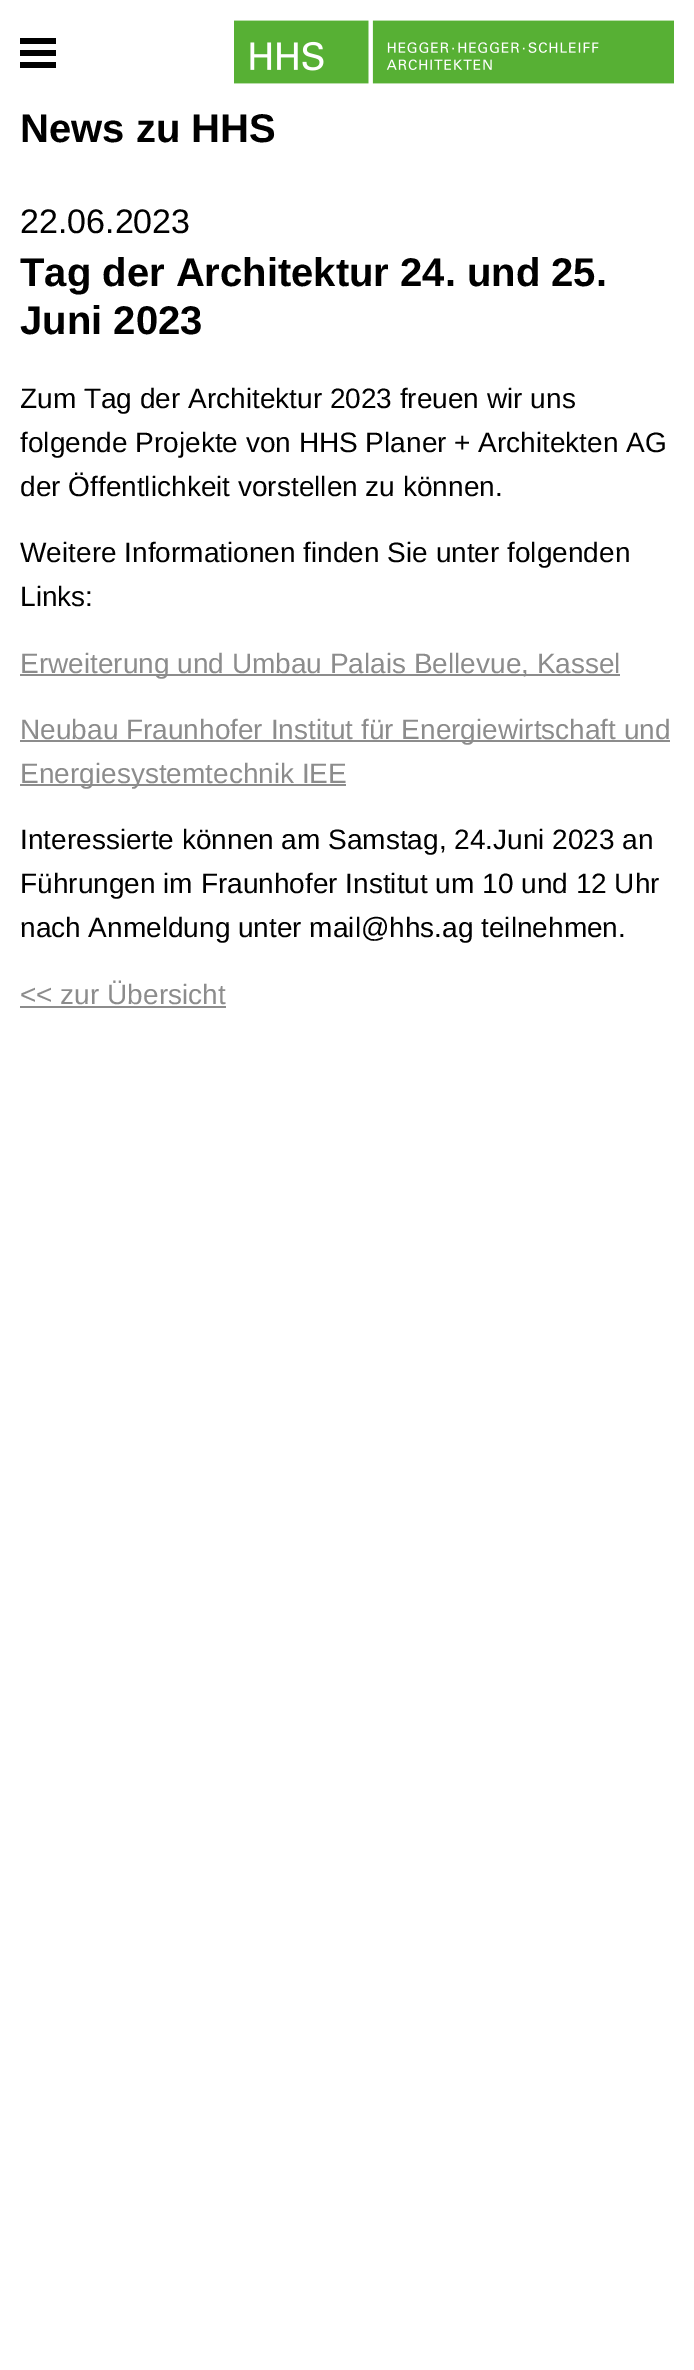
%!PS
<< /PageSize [694 2370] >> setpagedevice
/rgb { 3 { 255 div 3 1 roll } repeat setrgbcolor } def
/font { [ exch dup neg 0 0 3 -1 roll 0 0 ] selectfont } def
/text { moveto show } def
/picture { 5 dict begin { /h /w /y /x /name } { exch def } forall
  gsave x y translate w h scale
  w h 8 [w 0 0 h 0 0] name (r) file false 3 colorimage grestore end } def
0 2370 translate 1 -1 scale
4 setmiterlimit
255 255 255 rgb
0 0 694 2370 rectfill
0 0 0 rgb
20 38 36 6 rectfill
20 50 36 6 rectfill
20 62 36 6 rectfill
(img_01.rgb) 234 20 440 64 picture
140 140 140 rgb
20 674 600 2 rectfill
20 740 650 2 rectfill
20 784 326 2 rectfill
20 1006 206 2 rectfill
/LiberationSans-Bold 40 font
0 0 0 rgb
(News zu HHS) 20 142 text
/LiberationSans-Regular 34 font
(22.06.2023) 20 233 text
/LiberationSans-Bold 40 font
(Tag der Architektur 24. und 25.) 20 286 text
(Juni 2023) 20 334 text
/LiberationSans-Regular 28 font
(Zum Tag der Architektur 2023 freuen wir uns) 20 408 text
(folgende Projekte von HHS Planer + Architekten AG) 20 452 text
(der Öffentlichkeit vorstellen zu können.) 20 496 text
(Weitere Informationen finden Sie unter folgenden) 20 562 text
(Links:) 20 606 text
140 140 140 rgb
(Erweiterung und Umbau Palais Bellevue, Kassel) 20 673 text
(Neubau Fraunhofer Institut für Energiewirtschaft und) 20 739 text
(Energiesystemtechnik IEE) 20 783 text
0 0 0 rgb
(Interessierte können am Samstag, 24.Juni 2023 an) 20 849 text
(Führungen im Fraunhofer Institut um 10 und 12 Uhr) 20 893 text
(nach Anmeldung unter mail@hhs.ag teilnehmen.) 20 937 text
140 140 140 rgb
(<< zur Übersicht) 20 1004 text
showpage
